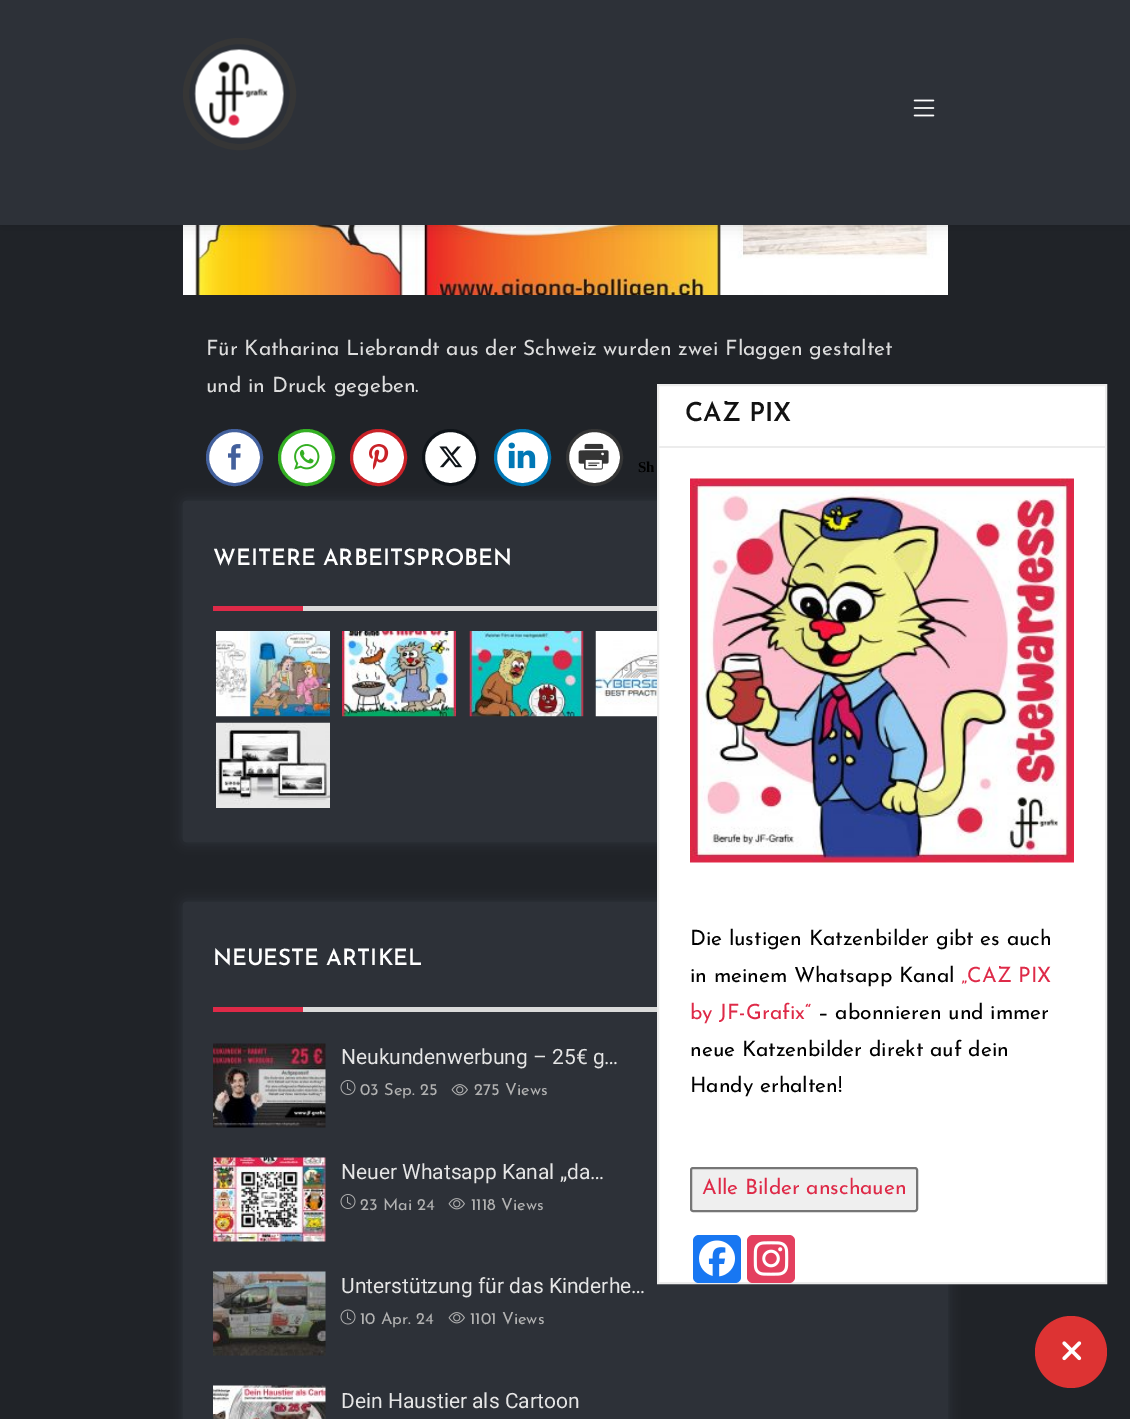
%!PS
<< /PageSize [1130 1419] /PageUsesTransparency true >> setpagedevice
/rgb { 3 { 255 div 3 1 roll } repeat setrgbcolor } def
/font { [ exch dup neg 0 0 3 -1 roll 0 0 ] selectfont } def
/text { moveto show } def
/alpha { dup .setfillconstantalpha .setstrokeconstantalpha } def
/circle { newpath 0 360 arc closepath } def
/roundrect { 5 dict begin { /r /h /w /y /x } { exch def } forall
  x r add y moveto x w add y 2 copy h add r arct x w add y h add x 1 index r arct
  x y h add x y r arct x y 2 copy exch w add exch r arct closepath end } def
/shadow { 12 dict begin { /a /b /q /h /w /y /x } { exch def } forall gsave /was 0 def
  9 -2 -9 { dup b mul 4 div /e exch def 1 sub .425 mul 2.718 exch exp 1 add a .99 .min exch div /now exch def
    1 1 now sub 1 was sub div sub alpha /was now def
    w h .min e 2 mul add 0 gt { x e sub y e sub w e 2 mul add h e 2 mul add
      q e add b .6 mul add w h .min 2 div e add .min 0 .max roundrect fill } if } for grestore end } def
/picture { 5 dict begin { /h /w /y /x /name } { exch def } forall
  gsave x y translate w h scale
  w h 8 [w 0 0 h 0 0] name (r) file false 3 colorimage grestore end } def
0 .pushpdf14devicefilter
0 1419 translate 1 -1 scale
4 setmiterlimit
32 35 40 rgb
0 0 1130 1419 rectfill
(img_03.rgb) 183 225 765 70 picture
0 0 0 rgb
0 0 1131 225 0 7.5 0.15 shadow
45 49 56 rgb
0 0 1130 225 rectfill
54 54 54 rgb
6 setlinewidth
186 41 107 106 53 roundrect stroke
(img_01.rgb) 194 49 90 90 picture
(img_02.rgb) 913 99 22 18 picture
255 255 255 rgb
234.5 457.5 27 circle gsave fill grestore
67 96 156 rgb
3 setlinewidth
stroke
(img_04.rgb) 228 444 13 26 picture
255 255 255 rgb
306.5 457.5 27 circle gsave fill grestore
52 175 35 rgb
stroke
(img_05.rgb) 294 444 26 26 picture
255 255 255 rgb
378.5 457.5 27 circle gsave fill grestore
201 34 40 rgb
stroke
(img_06.rgb) 369 444 20 26 picture
255 255 255 rgb
450.5 457.5 27 circle gsave fill grestore
15 20 25 rgb
stroke
(img_07.rgb) 439 446 24 22 picture
255 255 255 rgb
522.5 457.5 27 circle gsave fill grestore
0 119 181 rgb
stroke
(img_08.rgb) 508 442 28 27 picture
255 255 255 rgb
594.5 457.5 27 circle gsave fill grestore
53 53 53 rgb
stroke
(img_09.rgb) 578 443 31 27 picture
110 123 140 rgb
183 501 765 341 3 6 0.2 shadow
45 49 56 rgb
183 501 765 341 3 roundrect fill
218 218 218 rgb
303 606 354 5 rectfill
222 42 72 rgb
213 606 90 5 rectfill
(img_10.rgb) 216 631 114 86 picture
(img_11.rgb) 342 631 114 86 picture
(img_12.rgb) 469 631 115 86 picture
(img_13.rgb) 595 631 62 86 picture
(img_14.rgb) 216 722 114 86 picture
110 123 140 rgb
183 902 765 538 3 6 0.2 shadow
45 49 56 rgb
183 902 765 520 3 roundrect fill
218 218 218 rgb
303 1007 354 5 rectfill
222 42 72 rgb
213 1007 90 5 rectfill
(img_15.rgb) 213 1043 113 85 picture
(img_16.rgb) 340 1080 16 15 picture
(img_17.rgb) 451 1084 17 12 picture
(img_18.rgb) 213 1157 113 85 picture
(img_16.rgb) 340 1194 16 15 picture
(img_17.rgb) 448 1198 17 12 picture
(img_19.rgb) 213 1271 113 85 picture
(img_20.rgb) 340 1309 16 16 picture
(img_17.rgb) 448 1312 17 12 picture
(img_21.rgb) 213 1385 113 34 picture
255 255 255 rgb
658 385 moveto 448 0 rlineto 0 898 rlineto -448 0 rlineto closepath gsave fill grestore
236 236 236 rgb
2 setlinewidth
stroke
659 446 447 2 rectfill
(img_22.rgb) 690 478 384 385 picture
239 239 239 rgb
691 1168 226 43 2 roundrect gsave fill grestore
118 118 118 rgb
stroke
24 119 242 rgb
693 1235 48 48 6 roundrect fill
(img_23.rgb) 699 1240 36 37 picture
228 64 95 rgb
747 1235 48 48 6 roundrect fill
(img_24.rgb) 753 1241 36 35 picture
221 51 51 rgb
1071 1352 36 circle fill
(img_25.rgb) 1062 1341 20 20 picture
/JosefinSans-Regular 21 font
221 221 221 rgb
(Für Katharina Liebrandt aus der Schweiz wurden zwei Flaggen gestaltet) 206 355 text
(und in Druck gegeben.) 206 392 text
/LiberationSerif-Bold 15 font
0 0 0 rgb
(Sh) 638 472 text
/JosefinSans-SemiBold 22.5 font
255 255 255 rgb
(WEITERE ARBEITSPROBEN) 213 565 text
(NEUESTE ARTIKEL) 213 965 text
/Roboto-Regular 21 font
229 229 229 rgb
(Neukundenwerbung – 25€ g…) 341 1064 text
/JosefinSans-Regular 16.5 font
178 178 178 rgb
(03 Sep. 25) 360 1095 text
(275 Views) 474 1095 text
/Roboto-Regular 21 font
229 229 229 rgb
(Neuer Whatsapp Kanal „da…) 341 1179 text
/JosefinSans-Regular 16.5 font
178 178 178 rgb
(23 Mai 24) 360 1210 text
(1118 Views) 471 1210 text
/Roboto-Regular 21 font
229 229 229 rgb
(Unterstützung für das Kinderhe…) 341 1293 text
/JosefinSans-Regular 16.5 font
178 178 178 rgb
(10 Apr. 24) 360 1324 text
(1101 Views) 470 1324 text
/Roboto-Regular 21 font
229 229 229 rgb
(Dein Haustier als Cartoon) 341 1408 text
/JosefinSans-SemiBold 26.25 font
18 18 18 rgb
(CAZ PIX) 685 421 text
/JosefinSans-Regular 21 font
0 0 0 rgb
(Die lustigen Katzenbilder gibt es auch) 690 945 text
(in meinem Whatsapp Kanal) 690 982 text
222 42 72 rgb
(„CAZ PIX) 961 982 text
(by JF-Grafix“) 690 1019 text
0 0 0 rgb
(– abonnieren und immer) 818 1019 text
(neue Katzenbilder direkt auf dein) 690 1056 text
(Handy erhalten!) 690 1092 text
222 42 72 rgb
(Alle Bilder anschauen) 702 1194 text
.poppdf14devicefilter showpage
